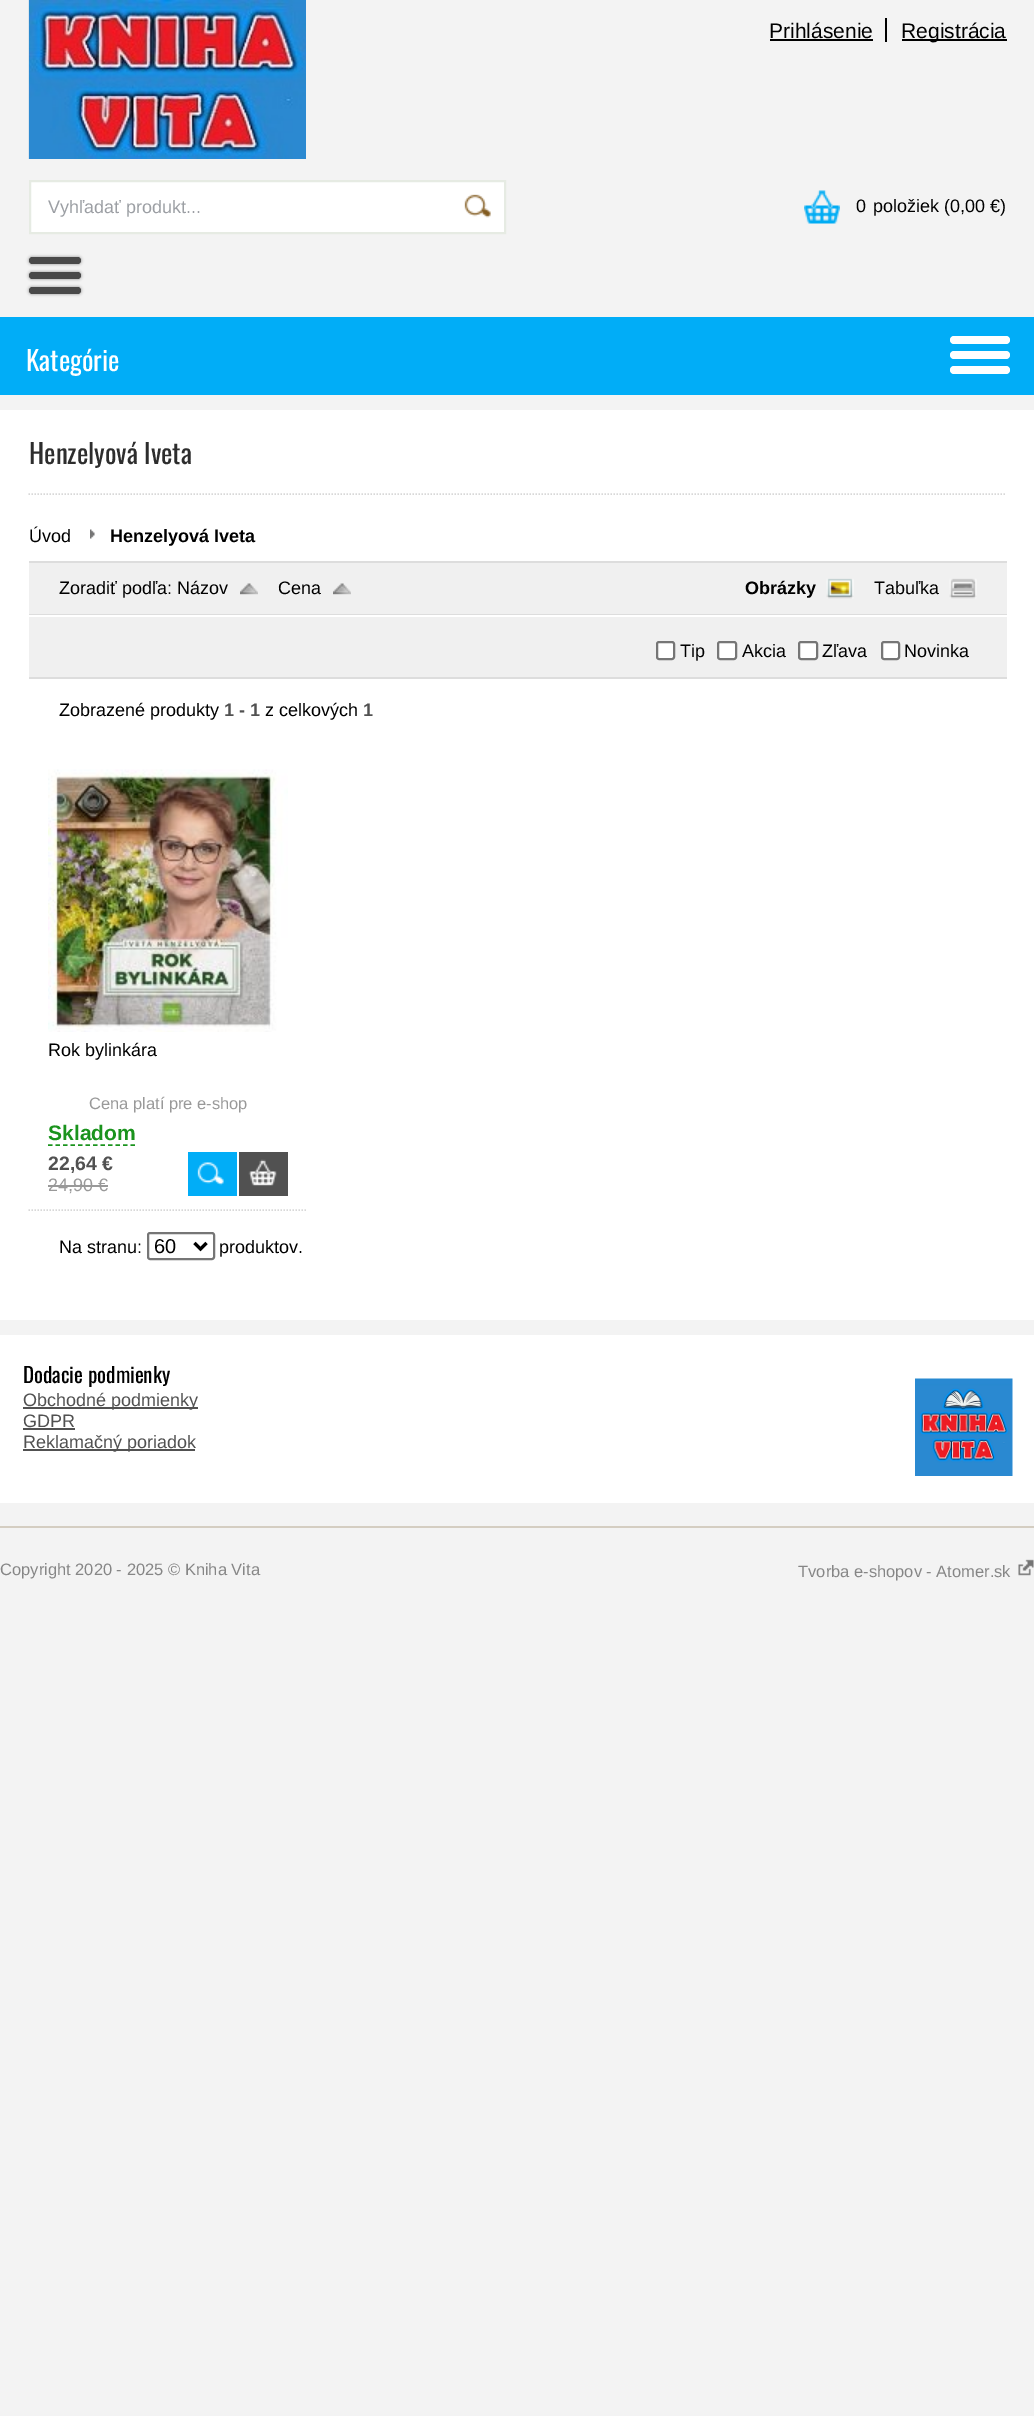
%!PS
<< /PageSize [1034 2416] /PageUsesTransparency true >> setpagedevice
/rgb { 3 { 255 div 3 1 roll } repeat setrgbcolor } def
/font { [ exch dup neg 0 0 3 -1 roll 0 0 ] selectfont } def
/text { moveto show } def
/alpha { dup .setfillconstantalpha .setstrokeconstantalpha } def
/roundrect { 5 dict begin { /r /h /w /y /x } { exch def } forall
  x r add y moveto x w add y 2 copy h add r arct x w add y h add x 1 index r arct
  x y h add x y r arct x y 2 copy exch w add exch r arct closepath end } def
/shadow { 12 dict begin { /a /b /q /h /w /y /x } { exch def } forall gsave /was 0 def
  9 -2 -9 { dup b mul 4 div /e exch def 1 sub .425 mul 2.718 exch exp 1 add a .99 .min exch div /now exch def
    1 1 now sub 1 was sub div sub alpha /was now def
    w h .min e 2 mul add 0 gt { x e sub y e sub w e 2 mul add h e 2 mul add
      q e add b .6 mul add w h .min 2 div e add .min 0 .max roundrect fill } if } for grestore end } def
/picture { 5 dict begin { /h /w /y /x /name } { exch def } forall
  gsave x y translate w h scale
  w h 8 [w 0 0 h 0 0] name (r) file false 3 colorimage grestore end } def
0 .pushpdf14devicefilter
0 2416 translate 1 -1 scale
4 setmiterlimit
243 243 243 rgb
0 0 1034 2416 rectfill
0 0 0 rgb
885 18 2 24 rectfill
770 39 103 2 rectfill
902 39 105 2 rectfill
(img_01.rgb) 28 0 278 159 picture
255 255 255 rgb
30 181 moveto 475 0 rlineto 0 52 rlineto -475 0 rlineto closepath gsave fill grestore
230 235 227 rgb
2 setlinewidth
stroke
(img_02.rgb) 464 194 27 24 picture
(img_03.rgb) 804 190 36 34 picture
0 0 0 rgb
29 257 52 7 3.5 1.5 0.4 shadow
73 73 73 rgb
29 257 52 7 3.5 roundrect fill
0 0 0 rgb
29 272 52 7 3.5 1.5 0.4 shadow
73 73 73 rgb
29 272 52 7 3.5 roundrect fill
0 0 0 rgb
29 287 52 7 3.5 1.5 0.4 shadow
73 73 73 rgb
29 287 52 7 3.5 roundrect fill
1 173 247 rgb
0 317 1034 78 rectfill
255 255 255 rgb
950 336 60 8 4 roundrect fill
950 351 60 8 4 roundrect fill
950 366 60 8 4 roundrect fill
0 410 1034 910 rectfill
216 216 216 rgb
1.5 setlinewidth
[1.5 1.5] 0 setdash
28.5 494 moveto 978 0 rlineto stroke
(img_04.rgb) 90 529 5 10 picture
240 240 240 rgb
29 563 978 114 rectfill
221 221 221 rgb
29 561 978 2 rectfill
29 677 978 2 rectfill
29 614 978 1 rectfill
(img_05.rgb) 240 583 18 12 picture
(img_06.rgb) 333 583 18 12 picture
(img_07.rgb) 826 578 28 21 picture
(img_08.rgb) 949 578 28 21 picture
255 255 255 rgb
29 615 978 2 rectfill
657 642 17 17 2 roundrect gsave fill grestore
118 118 118 rgb
2 setlinewidth
[] 0 setdash
stroke
255 255 255 rgb
718 642 18 17 2 roundrect gsave fill grestore
118 118 118 rgb
stroke
255 255 255 rgb
799 642 18 17 2 roundrect gsave fill grestore
118 118 118 rgb
stroke
255 255 255 rgb
882 642 17 17 2 roundrect gsave fill grestore
118 118 118 rgb
stroke
216 216 216 rgb
1.5 setlinewidth
[1.5 1.5] 0 setdash
28.5 1210 moveto 279 0 rlineto stroke
(img_09.rgb) 48 769 240 263 picture
26 147 29 rgb
[4.5 3] 0 setdash
48 1145 moveto 87 0 rlineto stroke
153 153 153 rgb
48 1185 60 2 rectfill
1 173 247 rgb
188 1152 49 44 rectfill
(img_10.rgb) 197 1162 27 24 picture
81 81 81 rgb
239 1152 49 44 rectfill
(img_11.rgb) 248 1159 29 27 picture
118 118 118 rgb
2 setlinewidth
[] 0 setdash
148 1233 66 26 2 roundrect stroke
0 0 0 rgb
3 setlinewidth
194.5 1243 moveto 6 6 rlineto 6 -6 rlineto stroke
255 255 255 rgb
0 1335 1034 168 rectfill
81 81 81 rgb
23 1407 175 2 rectfill
23 1428 52 2 rectfill
23 1449 172 2 rectfill
(img_12.rgb) 915 1378 98 98 picture
212 205 193 rgb
0 1526 1034 2 rectfill
(img_13.rgb) 1018 1559 16 17 picture
/LiberationSans-Regular 21 font
0 0 0 rgb
(Prihlásenie) 769 38 text
(Registrácia) 901 38 text
/LiberationSans-Regular 18 font
156 159 164 rgb
(Vyhľadať produkt...) 48 213 text
0 0 0 rgb
(0) 856 212 text
(položiek \(0,00 €\)) 873 212 text
/Oswald-Regular 27 font
255 255 255 rgb
(Kategórie) 26 371 text
45 45 45 rgb
(Henzelyová Iveta) 29 464 text
/LiberationSans-Regular 18 font
0 0 0 rgb
(Úvod) 29 542 text
/LiberationSans-Bold 18 font
(Henzelyová Iveta) 110 542 text
/LiberationSans-Regular 18 font
(Zoradiť podľa: Názov) 59 594 text
(Cena) 278 594 text
/LiberationSans-Bold 18 font
(Obrázky) 745 594 text
/LiberationSans-Regular 18 font
(Tabuľka) 874 594 text
(Tip) 680 657 text
(Akcia) 742 657 text
(Zľava) 822 657 text
(Novinka) 904 657 text
(Zobrazené produkty) 59 716 text
/LiberationSans-Bold 18 font
81 81 81 rgb
(1 - 1) 224 716 text
/LiberationSans-Regular 18 font
0 0 0 rgb
(z celkových) 265 716 text
/LiberationSans-Bold 18 font
81 81 81 rgb
(1) 363 716 text
/LiberationSans-Regular 18 font
0 0 0 rgb
(Rok bylinkára) 48 1056 text
/LiberationSans-Regular 16.5 font
153 153 153 rgb
(Cena platí pre e-shop) 89 1109 text
/LiberationSans-Bold 21 font
26 147 29 rgb
(Skladom) 48 1140 text
/LiberationSans-Bold 19.5 font
81 81 81 rgb
(22,64 €) 48 1170 text
/LiberationSans-Regular 18 font
153 153 153 rgb
(24,90 €) 48 1191 text
0 0 0 rgb
(Na stranu:) 59 1253 text
/LiberationSans-Regular 20 font
(60) 154 1253 text
/LiberationSans-Regular 18 font
(produktov.) 219 1253 text
/Oswald-Regular 21 font
(Dodacie podmienky) 23 1383 text
/LiberationSans-Regular 18 font
81 81 81 rgb
(Obchodné podmienky) 23 1406 text
(GDPR) 23 1427 text
(Reklamačný poriadok) 23 1448 text
/LiberationSans-Regular 16.5 font
134 134 134 rgb
(Copyright 2020 - 2025 © Kniha Vita) 0 1575 text
(Tvorba e-shopov - Atomer.sk) 798 1577 text
.poppdf14devicefilter showpage
